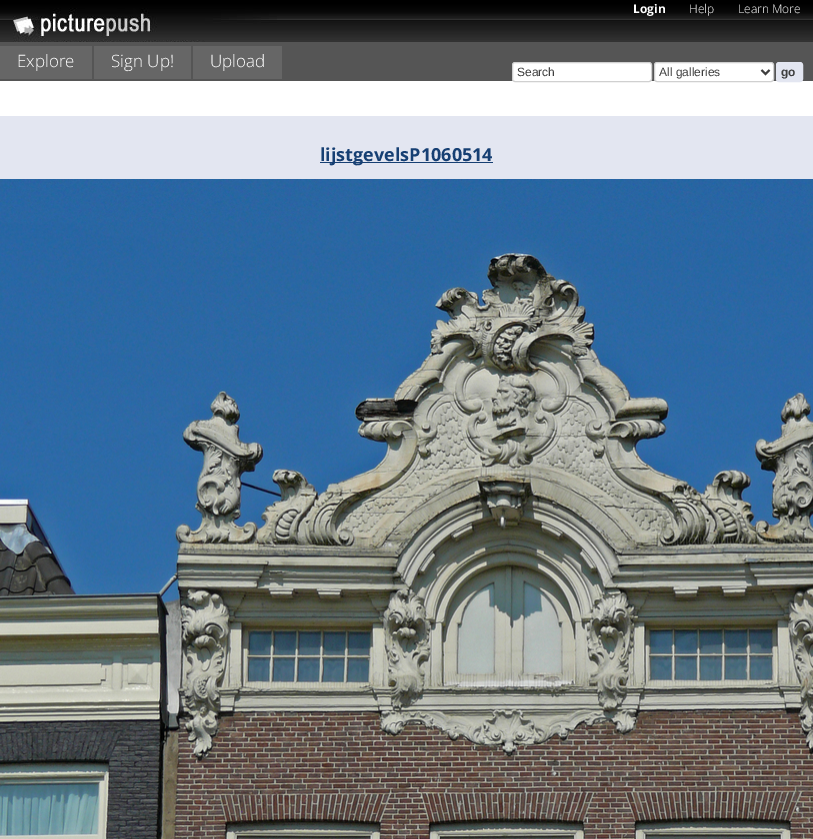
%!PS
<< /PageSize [813 839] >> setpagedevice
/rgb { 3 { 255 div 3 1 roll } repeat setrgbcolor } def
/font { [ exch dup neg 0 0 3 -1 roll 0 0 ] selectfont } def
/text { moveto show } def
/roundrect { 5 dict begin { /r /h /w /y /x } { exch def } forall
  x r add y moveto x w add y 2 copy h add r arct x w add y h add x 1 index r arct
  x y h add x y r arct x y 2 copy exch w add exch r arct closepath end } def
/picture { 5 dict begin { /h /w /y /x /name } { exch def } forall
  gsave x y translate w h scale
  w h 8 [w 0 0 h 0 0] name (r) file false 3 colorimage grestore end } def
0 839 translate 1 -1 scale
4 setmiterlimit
227 230 241 rgb
0 0 813 839 rectfill
(img_01.rgb) 0 0 813 42 picture
(img_02.rgb) 13 8 264 34 picture
85 85 85 rgb
0 42 813 39 rectfill
102 102 102 rgb
0 46 92 33 rectfill
94 46 97 33 rectfill
193 46 89 33 rectfill
255 255 255 rgb
0 81 813 35 rectfill
512.5 62.5 139 19 2.5 roundrect gsave fill grestore
208 208 208 rgb
stroke
255 255 255 rgb
654.5 62.5 119 19 2.5 roundrect gsave fill grestore
208 208 208 rgb
stroke
62 62 62 rgb
2 setlinewidth
761.5 70 moveto 4 4 rlineto 4 -4 rlineto stroke
227 230 241 rgb
776.5 62.5 26 19 2.5 roundrect gsave fill grestore
1 setlinewidth
stroke
22 63 115 rgb
320 162 173 1 rectfill
(img_03.rgb) 0 179 813 660 picture
/OpenSans-Bold 12 font
255 255 255 rgb
(Login) 633 13 text
/OpenSans-Light 12 font
(Help) 689 13 text
(Learn More) 738 13 text
/OpenSans-Light 17 font
(Explore) 17 67 text
(Sign Up!) 111 67 text
(Upload) 210 67 text
/LiberationSans-Regular 12 font
62 62 62 rgb
(Search) 517 76 text
(All galleries) 659 76 text
/LiberationSans-Bold 12 font
(go) 781 76 text
/OpenSans-Bold 18 font
22 63 115 rgb
(lijstgevelsP1060514) 320 161 text
showpage
